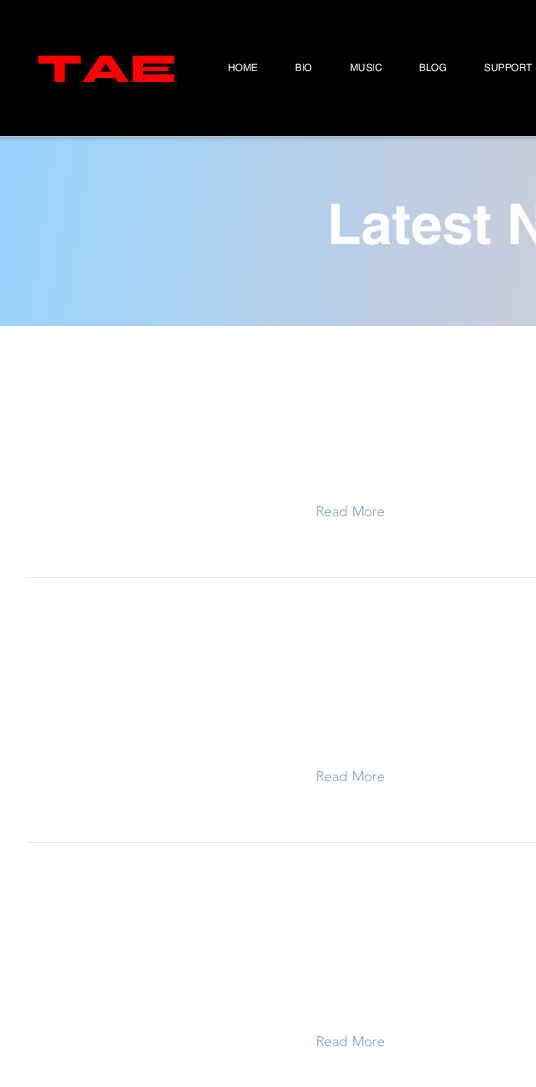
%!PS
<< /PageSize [536 1087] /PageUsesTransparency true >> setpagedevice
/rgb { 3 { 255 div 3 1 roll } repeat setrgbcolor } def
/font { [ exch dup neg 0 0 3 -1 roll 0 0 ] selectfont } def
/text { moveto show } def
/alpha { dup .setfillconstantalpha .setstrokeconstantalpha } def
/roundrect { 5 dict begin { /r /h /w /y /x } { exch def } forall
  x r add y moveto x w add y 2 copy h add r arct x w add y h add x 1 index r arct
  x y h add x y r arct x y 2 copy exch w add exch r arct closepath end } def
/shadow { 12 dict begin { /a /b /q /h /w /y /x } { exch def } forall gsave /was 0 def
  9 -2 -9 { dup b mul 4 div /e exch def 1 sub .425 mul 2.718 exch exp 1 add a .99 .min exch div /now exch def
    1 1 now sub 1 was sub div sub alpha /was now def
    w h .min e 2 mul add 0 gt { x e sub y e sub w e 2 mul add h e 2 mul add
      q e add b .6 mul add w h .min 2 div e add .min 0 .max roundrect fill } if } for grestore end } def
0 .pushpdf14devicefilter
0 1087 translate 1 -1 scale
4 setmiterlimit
255 255 255 rgb
0 0 536 1087 rectfill
gsave 0 137 moveto 536 0 rlineto 0 189 rlineto -536 0 rlineto closepath clip newpath
<< /ShadingType 2 /ColorSpace /DeviceRGB /Coords [-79 701 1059 862] /Extend [true true] /Function << /FunctionType 2 /Domain [0 1] /C0 [0.6 0.831 1] /C1 [0.996 0.769 0.698] /N 1 >> >> shfill grestore
0 0 0 rgb
0 0 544 136 0 2.5 0.5 shadow
0 0 536 136 rectfill
232 230 230 rgb
28 577 508 1 rectfill
28 842 508 1 rectfill
/Syne-ExtraBold 41 font
255 0 0 rgb
(TAE) 37 82 text
/helvetica-Regular 10 font
255 255 255 rgb
(HOME) 228 71 text
(BIO) 295 71 text
(MUSIC) 350 71 text
(BLOG) 419 71 text
(SUPPORT) 484 71 text
/helvetica-Bold 56 font
(Latest N) 327 244 text
/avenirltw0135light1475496-Light 14 font
115 159 191 rgb
(Read More) 316 516 text
(Read More) 316 781 text
(Read More) 316 1046 text
.poppdf14devicefilter showpage
